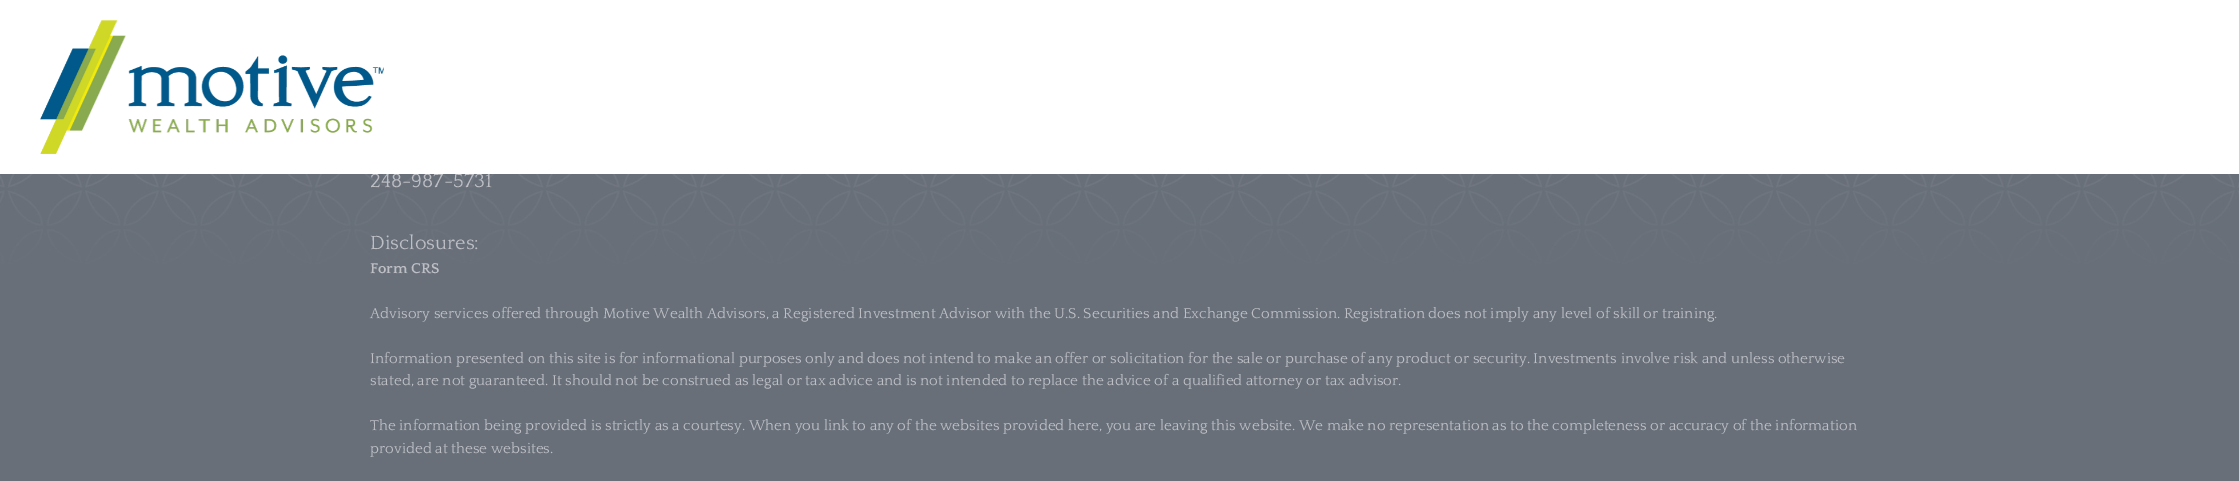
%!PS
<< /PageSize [2239 481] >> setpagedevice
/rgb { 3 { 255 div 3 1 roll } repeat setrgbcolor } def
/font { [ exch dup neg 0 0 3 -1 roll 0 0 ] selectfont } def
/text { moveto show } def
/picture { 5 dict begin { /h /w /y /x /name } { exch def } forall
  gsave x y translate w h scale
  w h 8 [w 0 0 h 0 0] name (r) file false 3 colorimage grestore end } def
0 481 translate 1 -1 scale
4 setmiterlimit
255 255 255 rgb
0 0 2239 481 rectfill
(img_01.rgb) 40 20 344 134 picture
(img_02.rgb) 0 174 2239 307 picture
/Quattrocento-Regular 20 font
189 191 196 rgb
(248-987-5731) 370 187 text
255 255 255 rgb
374 173 116 1 rectfill
189 191 196 rgb
(Disclosures:) 370 249 text
/Quattrocento-Bold 15 font
(Form CRS) 370 273 text
/Quattrocento-Regular 15 font
(Advisory services offered through Motive Wealth Advisors, a Registered Investment Advisor with the U.S. Securities and Exchange Commission. Registration does not imply any level of skill or training.) 370 318 text
(Information presented on this site is for informational purposes only and does not intend to make an offer or solicitation for the sale or purchase of any product or security. Investments involve risk and unless otherwise) 370 363 text
(stated, are not guaranteed. It should not be construed as legal or tax advice and is not intended to replace the advice of a qualified attorney or tax advisor.) 370 385 text
(The information being provided is strictly as a courtesy. When you link to any of the websites provided here, you are leaving this website. We make no representation as to the completeness or accuracy of the information) 370 430 text
(provided at these websites.) 370 453 text
showpage
